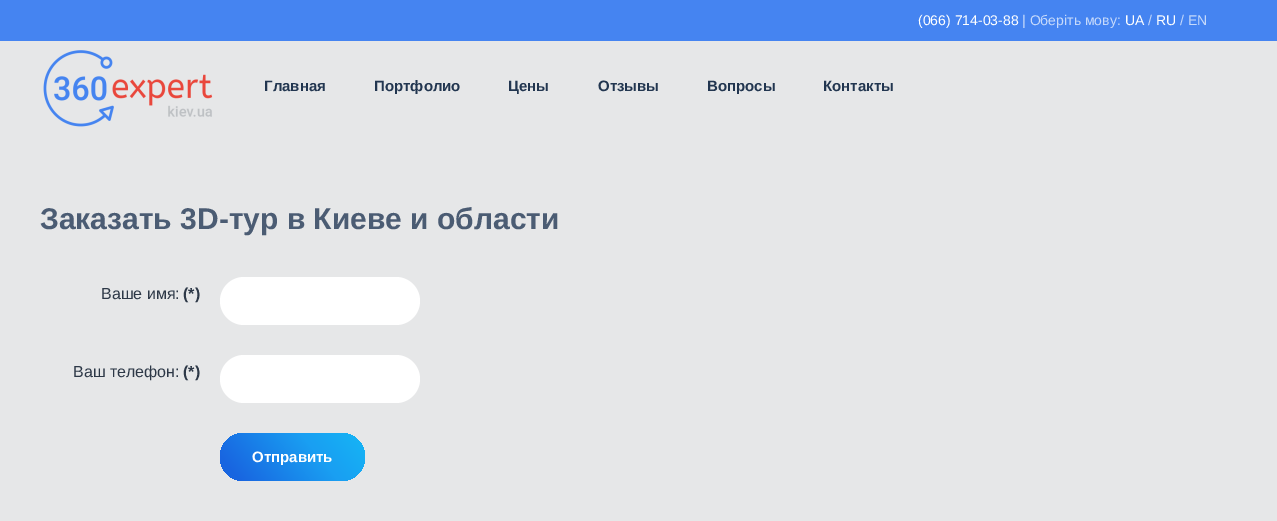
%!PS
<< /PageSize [1277 521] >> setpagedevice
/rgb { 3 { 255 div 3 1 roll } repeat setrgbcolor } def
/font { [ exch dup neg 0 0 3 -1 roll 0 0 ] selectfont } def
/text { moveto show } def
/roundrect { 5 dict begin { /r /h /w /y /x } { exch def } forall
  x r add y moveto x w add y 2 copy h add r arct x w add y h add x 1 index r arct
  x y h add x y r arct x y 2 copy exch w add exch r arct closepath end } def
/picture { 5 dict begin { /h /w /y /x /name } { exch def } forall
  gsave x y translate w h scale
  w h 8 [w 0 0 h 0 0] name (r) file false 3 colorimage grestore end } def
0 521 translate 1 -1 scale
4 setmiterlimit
230 231 232 rgb
0 0 1277 521 rectfill
69 132 241 rgb
0 0 1277 41 rectfill
(img_01.rgb) 43 50 170 77 picture
255 255 255 rgb
220 277 200 48 24 roundrect fill
220 355 200 48 24 roundrect fill
gsave 220 433 145 48 24 roundrect clip newpath
<< /ShadingType 2 /ColorSpace /DeviceRGB /Coords [121 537 319 377] /Extend [true true] /Function << /FunctionType 3 /Domain [0 1] /Functions [<< /FunctionType 2 /Domain [0 1] /C0 [0.094 0.396 0.878] /C1 [0.094 0.396 0.878] /N 1 >> << /FunctionType 2 /Domain [0 1] /C0 [0.094 0.396 0.878] /C1 [0.098 0.62 0.949] /N 1 >> << /FunctionType 2 /Domain [0 1] /C0 [0.098 0.62 0.949] /C1 [0.086 0.714 0.961] /N 1 >>] /Bounds [0.5 0.8] /Encode [0 1 0 1 0 1] >> >> shfill grestore
/LiberationSans-Regular 14 font
(\(066\) 714-03-88) 918 25 text
199 218 251 rgb
(| Оберіть мову:) 1022 25 text
255 255 255 rgb
(UA) 1125 25 text
199 218 251 rgb
(/) 1148 25 text
255 255 255 rgb
(RU) 1156 25 text
199 218 251 rgb
(/ EN) 1180 25 text
/LiberationSans-Bold 15 font
34 54 80 rgb
(Главная) 264 91 text
(Портфолио) 374 91 text
(Цены) 508 91 text
(Отзывы) 598 91 text
(Вопросы) 707 91 text
(Контакты) 823 91 text
/LiberationSans-Bold 30 font
75 92 115 rgb
(Заказать 3D-тур в Киеве и области) 40 229 text
/LiberationSans-Regular 16 font
45 56 71 rgb
(Ваше имя:) 101 299 text
/LiberationSans-Bold 16 font
(\(*\)) 183 299 text
/LiberationSans-Regular 16 font
(Ваш телефон:) 73 377 text
/LiberationSans-Bold 16 font
(\(*\)) 183 377 text
/LiberationSans-Bold 15 font
255 255 255 rgb
(Отправить) 252 462 text
showpage
